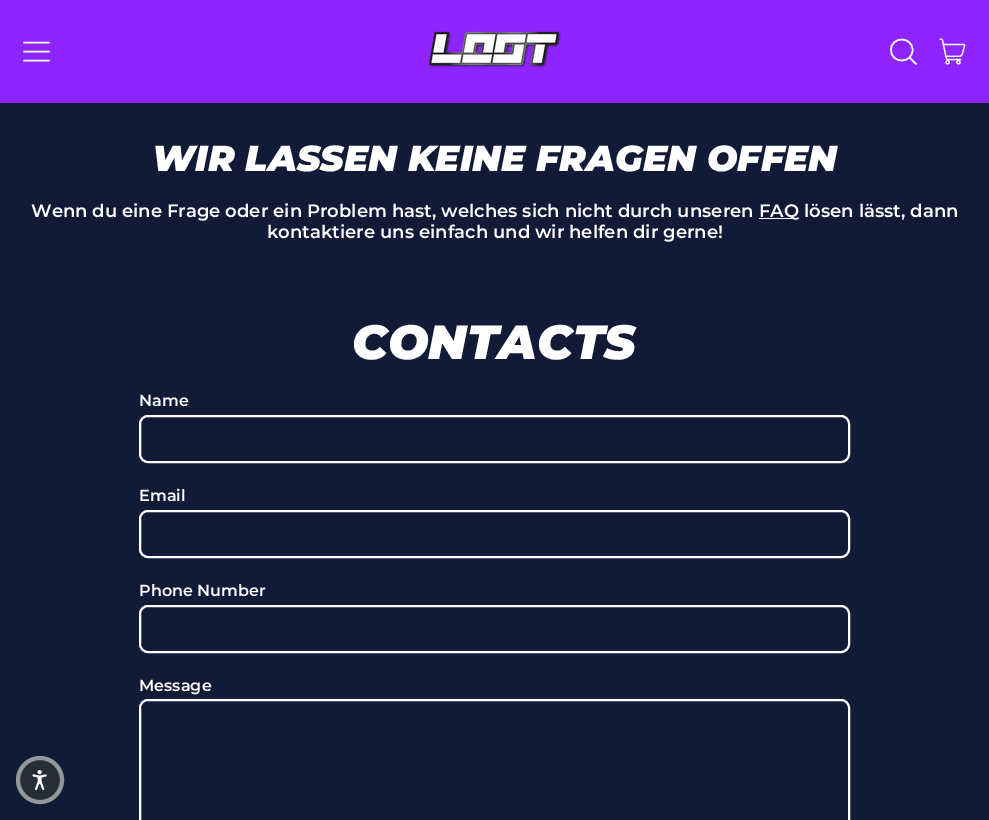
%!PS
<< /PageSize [989 820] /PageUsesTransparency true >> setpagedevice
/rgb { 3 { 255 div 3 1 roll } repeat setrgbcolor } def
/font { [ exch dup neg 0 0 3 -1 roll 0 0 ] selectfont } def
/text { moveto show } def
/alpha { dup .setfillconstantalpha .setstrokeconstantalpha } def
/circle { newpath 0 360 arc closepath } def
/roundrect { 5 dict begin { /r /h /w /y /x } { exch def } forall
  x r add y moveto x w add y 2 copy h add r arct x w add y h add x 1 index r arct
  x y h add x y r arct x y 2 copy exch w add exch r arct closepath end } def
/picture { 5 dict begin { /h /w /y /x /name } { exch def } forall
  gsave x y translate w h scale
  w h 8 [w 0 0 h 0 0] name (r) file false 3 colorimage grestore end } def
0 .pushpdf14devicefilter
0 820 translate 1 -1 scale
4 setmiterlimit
17 26 55 rgb
0 0 989 820 rectfill
142 36 255 rgb
0 0 989 103 rectfill
255 255 255 rgb
1.5 setlinewidth
1 setlinecap
1 setlinejoin
49 60.5 moveto -25 0 rlineto 49 51.5 moveto -25 0 rlineto 49 42.5 moveto -25 0 rlineto stroke
(img_01.rgb) 428 31 133 37 picture
891 50 moveto 0 14 21.5 14 21.5 0 rcurveto 0 -14 -21.5 -14 -21.5 0 rcurveto closepath 916 64 moveto -6.5 -6.5 rlineto stroke
(img_02.rgb) 939 38 27 27 picture
759 218 40 1 rectfill
2 setlinewidth
0 setlinecap
0 setlinejoin
140 416 709 46 8 roundrect stroke
140 511 709 46 8 roundrect stroke
140 606 709 46 8 roundrect stroke
140 700 709 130 8 roundrect stroke
39 45 54 rgb
40 780 24 circle fill
0.5 alpha
255 255 255 rgb
4 setlinewidth
40 780 22 circle stroke
1 alpha
(img_03.rgb) 32 770 15 20 picture
/Montserrat-BlackItalic 36 font
(WIR LASSEN KEINE FRAGEN OFFEN) 152 171 text
/Montserrat-SemiBold 18 font
(Wenn du eine Frage oder ein Problem hast, welches sich nicht durch unseren) 31 217 text
(FAQ lösen lässt, dann) 759 217 text
(kontaktiere uns einfach und wir helfen dir gerne!) 267 238 text
/Montserrat-BlackItalic 48 font
(CONTACTS) 352 359 text
/Montserrat-SemiBold 16 font
(Name) 139 406 text
(Email) 139 501 text
(Phone Number) 139 596 text
(Message) 139 691 text
.poppdf14devicefilter showpage
